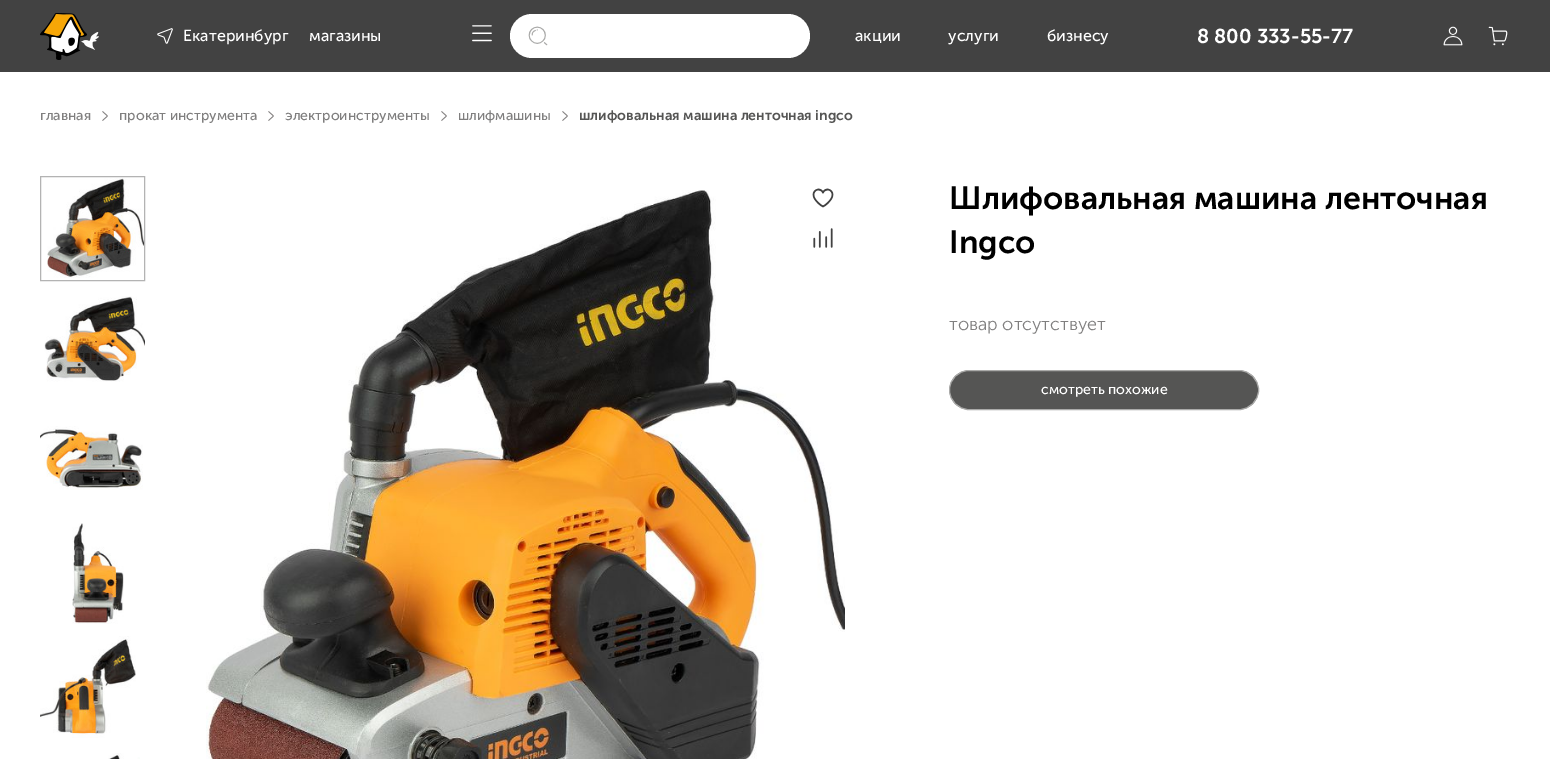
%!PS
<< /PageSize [1550 759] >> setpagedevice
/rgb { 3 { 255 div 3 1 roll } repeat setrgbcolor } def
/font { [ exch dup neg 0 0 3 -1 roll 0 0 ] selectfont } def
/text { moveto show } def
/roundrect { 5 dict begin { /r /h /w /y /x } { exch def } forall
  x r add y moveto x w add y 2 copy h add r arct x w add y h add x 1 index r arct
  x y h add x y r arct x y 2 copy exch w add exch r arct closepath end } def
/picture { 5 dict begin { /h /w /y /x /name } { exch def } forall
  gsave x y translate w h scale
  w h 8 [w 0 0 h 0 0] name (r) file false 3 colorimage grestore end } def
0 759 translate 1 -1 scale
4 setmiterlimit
255 255 255 rgb
0 0 1550 759 rectfill
66 66 66 rgb
0 0 1550 72 rectfill
(img_01.rgb) 40 13 59 47 picture
(img_02.rgb) 157 28 16 16 picture
(img_03.rgb) 472 25 20 17 picture
255 255 255 rgb
510 14 300 44 22 roundrect fill
(img_04.rgb) 528 26 20 20 picture
(img_05.rgb) 1443 26 20 20 picture
(img_06.rgb) 1488 26 20 20 picture
(img_07.rgb) 102 111 6 10 picture
(img_07.rgb) 268 111 6 10 picture
(img_07.rgb) 441 111 6 10 picture
(img_07.rgb) 562 111 6 10 picture
179 179 179 rgb
40.5 176.5 104 104 rectstroke
(img_08.rgb) 47 178 97 100 picture
(img_09.rgb) 44 296 101 86 picture
(img_10.rgb) 40 426 103 64 picture
(img_11.rgb) 72 523 52 101 picture
(img_12.rgb) 40 636 96 102 picture
(img_13.rgb) 108 753 32 6 picture
(img_16.rgb) 206 190 639 569 picture
(img_14.rgb) 812 188 22 20 picture
(img_15.rgb) 813 228 20 20 picture
85 85 84 rgb
949.5 370.5 309 39 19.5 roundrect gsave fill grestore
170 170 169 rgb
stroke
/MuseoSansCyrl-Regular 16 font
255 255 255 rgb
(Екатеринбург) 183 41 text
(магазины) 309 41 text
(акции) 855 41 text
(услуги) 948 41 text
(бизнесу) 1047 41 text
/MuseoSansCyrl-SemiBold 20 font
(8 800 333-55-77) 1197 43 text
/MuseoSansCyrl-Regular 14 font
128 127 127 rgb
(главная) 40 120 text
(прокат инструмента) 119 120 text
(электроинструменты) 285 120 text
(шлифмашины) 458 120 text
/MuseoSansCyrl-SemiBold 14 font
85 85 84 rgb
(шлифовальная машина ленточная ingco) 579 120 text
/MuseoSansCyrl-SemiBold 32 font
0 0 0 rgb
(Шлифовальная машина ленточная) 949 209 text
(Ingco) 949 253 text
/MuseoSansCyrl-Light 18 font
128 127 127 rgb
(товар отсутствует) 949 330 text
/MuseoSansCyrl-Regular 14 font
255 255 255 rgb
(смотреть похожие) 1041 394 text
showpage
